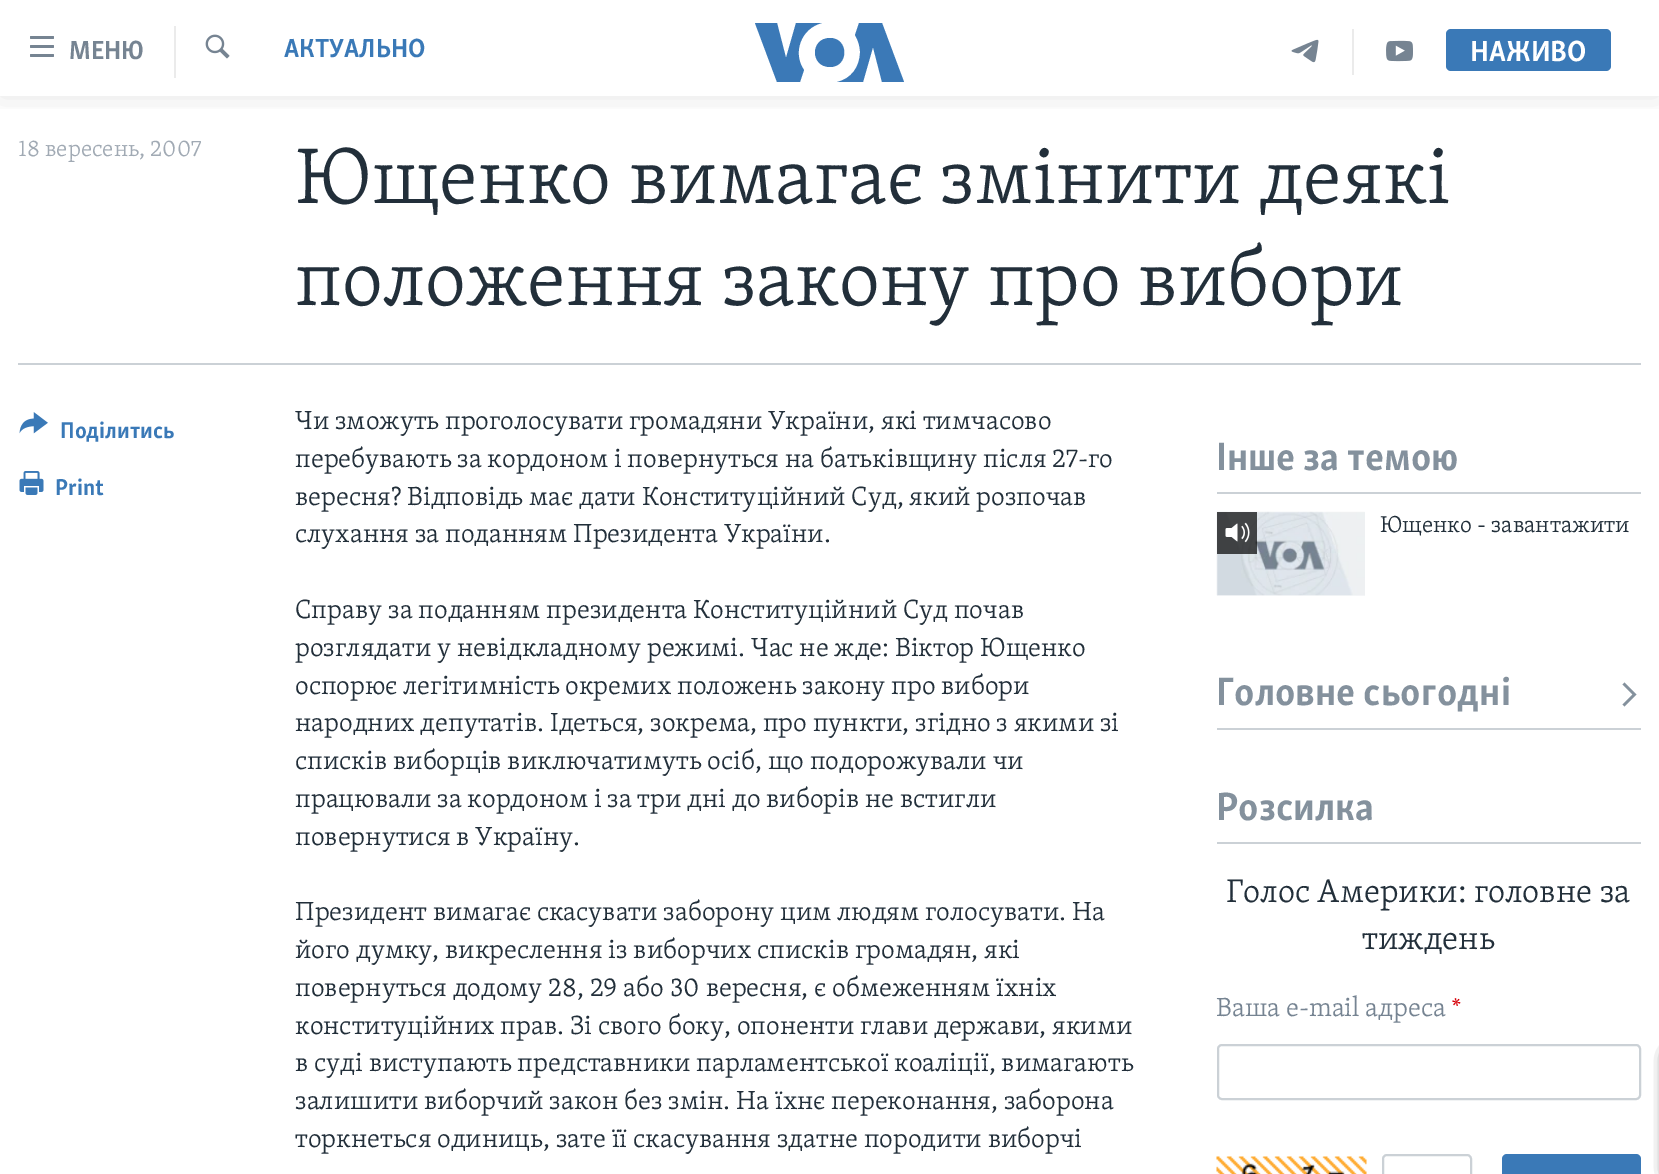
%!PS
<< /PageSize [1659 1174] /PageUsesTransparency true >> setpagedevice
/rgb { 3 { 255 div 3 1 roll } repeat setrgbcolor } def
/font { [ exch dup neg 0 0 3 -1 roll 0 0 ] selectfont } def
/text { moveto show } def
/alpha { dup .setfillconstantalpha .setstrokeconstantalpha } def
/roundrect { 5 dict begin { /r /h /w /y /x } { exch def } forall
  x r add y moveto x w add y 2 copy h add r arct x w add y h add x 1 index r arct
  x y h add x y r arct x y 2 copy exch w add exch r arct closepath end } def
/shadow { 12 dict begin { /a /b /q /h /w /y /x } { exch def } forall gsave /was 0 def
  9 -2 -9 { dup b mul 4 div /e exch def 1 sub .425 mul 2.718 exch exp 1 add a .99 .min exch div /now exch def
    1 1 now sub 1 was sub div sub alpha /was now def
    w h .min e 2 mul add 0 gt { x e sub y e sub w e 2 mul add h e 2 mul add
      q e add b .6 mul add w h .min 2 div e add .min 0 .max roundrect fill } if } for grestore end } def
/picture { 5 dict begin { /h /w /y /x /name } { exch def } forall
  gsave x y translate w h scale
  w h 8 [w 0 0 h 0 0] name (r) file false 3 colorimage grestore end } def
0 .pushpdf14devicefilter
0 1174 translate 1 -1 scale
4 setmiterlimit
255 255 255 rgb
0 0 1659 1174 rectfill
gsave
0 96 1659 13 rectclip
0 0 0 rgb
0 0 1659 96 0 15 0.1 shadow
grestore
(img_01.rgb) 30 36 24 21 picture
235 235 235 rgb
174 26 2 52 rectfill
(img_02.rgb) 205 34 25 25 picture
59 121 183 rgb
804 70 moveto -4 12 rlineto -23 0 rlineto -22 -59 rlineto 22 0 rlineto 9 35 rlineto 10 -35 rlineto 26 0 rlineto -21 5 -30 30 -18 47 rcurveto closepath 830 38 moveto -20 0 -20 29 0 29 rcurveto 19 0 19 -29 0 -29 rcurveto closepath 860 52 moveto 0 15 -9 27 -23 30 rcurveto 26 0 rlineto 10 -35 rlineto 9 35 rlineto 22 0 rlineto -22 -59 rlineto -23 0 rlineto -4 12 rlineto 3 5 5 11 5 17 rcurveto closepath fill
235 235 235 rgb
1352 29 2 46 rectfill
(img_03.rgb) 1291 39 28 24 picture
(img_04.rgb) 1386 40 27 22 picture
58 121 183 rgb
1446 29 165 42 5 roundrect fill
203 209 214 rgb
18 363 1623 2 rectfill
(img_05.rgb) 19 412 29 22 picture
(img_06.rgb) 19 471 25 24 picture
1217 492 424 2 rectfill
246 247 248 rgb
1217 512 148 84 rectfill
(img_07.rgb) 1216 511 149 85 picture
0.7 alpha
0 0 0 rgb
1217 512 40 42 rectfill
1 alpha
(img_08.rgb) 1225 522 25 21 picture
203 209 214 rgb
1217 728 424 2 rectfill
132 145 157 rgb
1624.5 706.5 moveto 12 -12 rlineto -12 -12 rlineto -2 2 rlineto 10 10 rlineto -10 10 rlineto closepath fill
203 209 214 rgb
1217 842 424 2 rectfill
2 setlinewidth
1218 1045 422 54 4 roundrect stroke
(img_09.rgb) 1216 1156 151 18 picture
1383 1155 88 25 4 roundrect stroke
58 121 183 rgb
1502 1154 139 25 5 roundrect fill
0 0 0 rgb
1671 1053 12 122 1.5 7.5 0.85 shadow
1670 1053 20 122 8 7.5 0.85 shadow
/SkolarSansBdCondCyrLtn-Bold 27 font
118 132 146 rgb
(МЕНЮ) 69 59 text
58 121 183 rgb
(АКТУАЛЬНО) 284 57 text
/SkolarSansBdCondCyrLtn-Bold 30 font
255 255 255 rgb
(НАЖИВО) 1470 61 text
/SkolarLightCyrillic-Light 23.6 font
161 170 180 rgb
(18 вересень, 2007) 18 156 text
/SkolarLightCyrillic-Light 81 font
34 47 58 rgb
(Ющенко вимагає змінити деякі) 295 203 text
(положення закону про вибори) 295 305 text
/SkolarSansBdCondCyrLtn-Bold 23.6 font
58 121 183 rgb
(Поділитись) 60 438 text
(Print) 55 495 text
/SkolarLightCyrillic-Light 27 font
34 47 58 rgb
(Чи зможуть проголосувати громадяни України, які тимчасово) 295 429 text
(перебувають за кордоном і повернуться на батьківщину після 27-го) 295 467 text
(вересня? Відповідь має дати Конституційний Суд, який розпочав) 295 505 text
(слухання за поданням Президента України.) 295 542 text
(Справу за поданням президента Конституційний Суд почав) 295 618 text
(розглядати у невідкладному режимі. Час не жде: Віктор Ющенко) 295 656 text
(оспорює легітимність окремих положень закону про вибори) 295 694 text
(народних депутатів. Ідеться, зокрема, про пункти, згідно з якими зі) 295 731 text
(списків виборців виключатимуть осіб, що подорожували чи) 295 769 text
(працювали за кордоном і за три дні до виборів не встигли) 295 807 text
(повернутися в Україну.) 295 845 text
(Президент вимагає скасувати заборону цим людям голосувати. На) 295 920 text
(його думку, викреслення із виборчих списків громадян, які) 295 958 text
(повернуться додому 28, 29 або 30 вересня, є обмеженням їхніх) 295 996 text
(конституційних прав. Зі свого боку, опоненти глави держави, якими) 295 1034 text
(в суді виступають представники парламентської коаліції, вимагають) 295 1071 text
(залишити виборчий закон без змін. На їхнє переконання, заборона) 295 1109 text
(торкнеться одиниць, зате її скасування здатне породити виборчі) 295 1147 text
/SkolarSansBdCondCyrLtn-Bold 40.5 font
132 145 157 rgb
(Інше за темою) 1216 470 text
/SkolarLightCyrillic-Light 23.6 font
34 47 58 rgb
(Ющенко - завантажити) 1380 532 text
/SkolarSansBdCondCyrLtn-Bold 40.5 font
132 145 157 rgb
(Головне сьогодні) 1216 705 text
(Розсилка) 1216 820 text
/SkolarLightCyrillic-Light 33.75 font
34 47 58 rgb
(Голос Америки: головне за) 1226 902 text
(тиждень) 1362 949 text
/SkolarLightCyrillic-Light 27 font
118 132 146 rgb
(Ваша e-mail адреса) 1216 1016 text
/SkolarLightCyrillic-Light 23.6 font
214 1 9 rgb
(*) 1452 1016 text
.poppdf14devicefilter showpage
